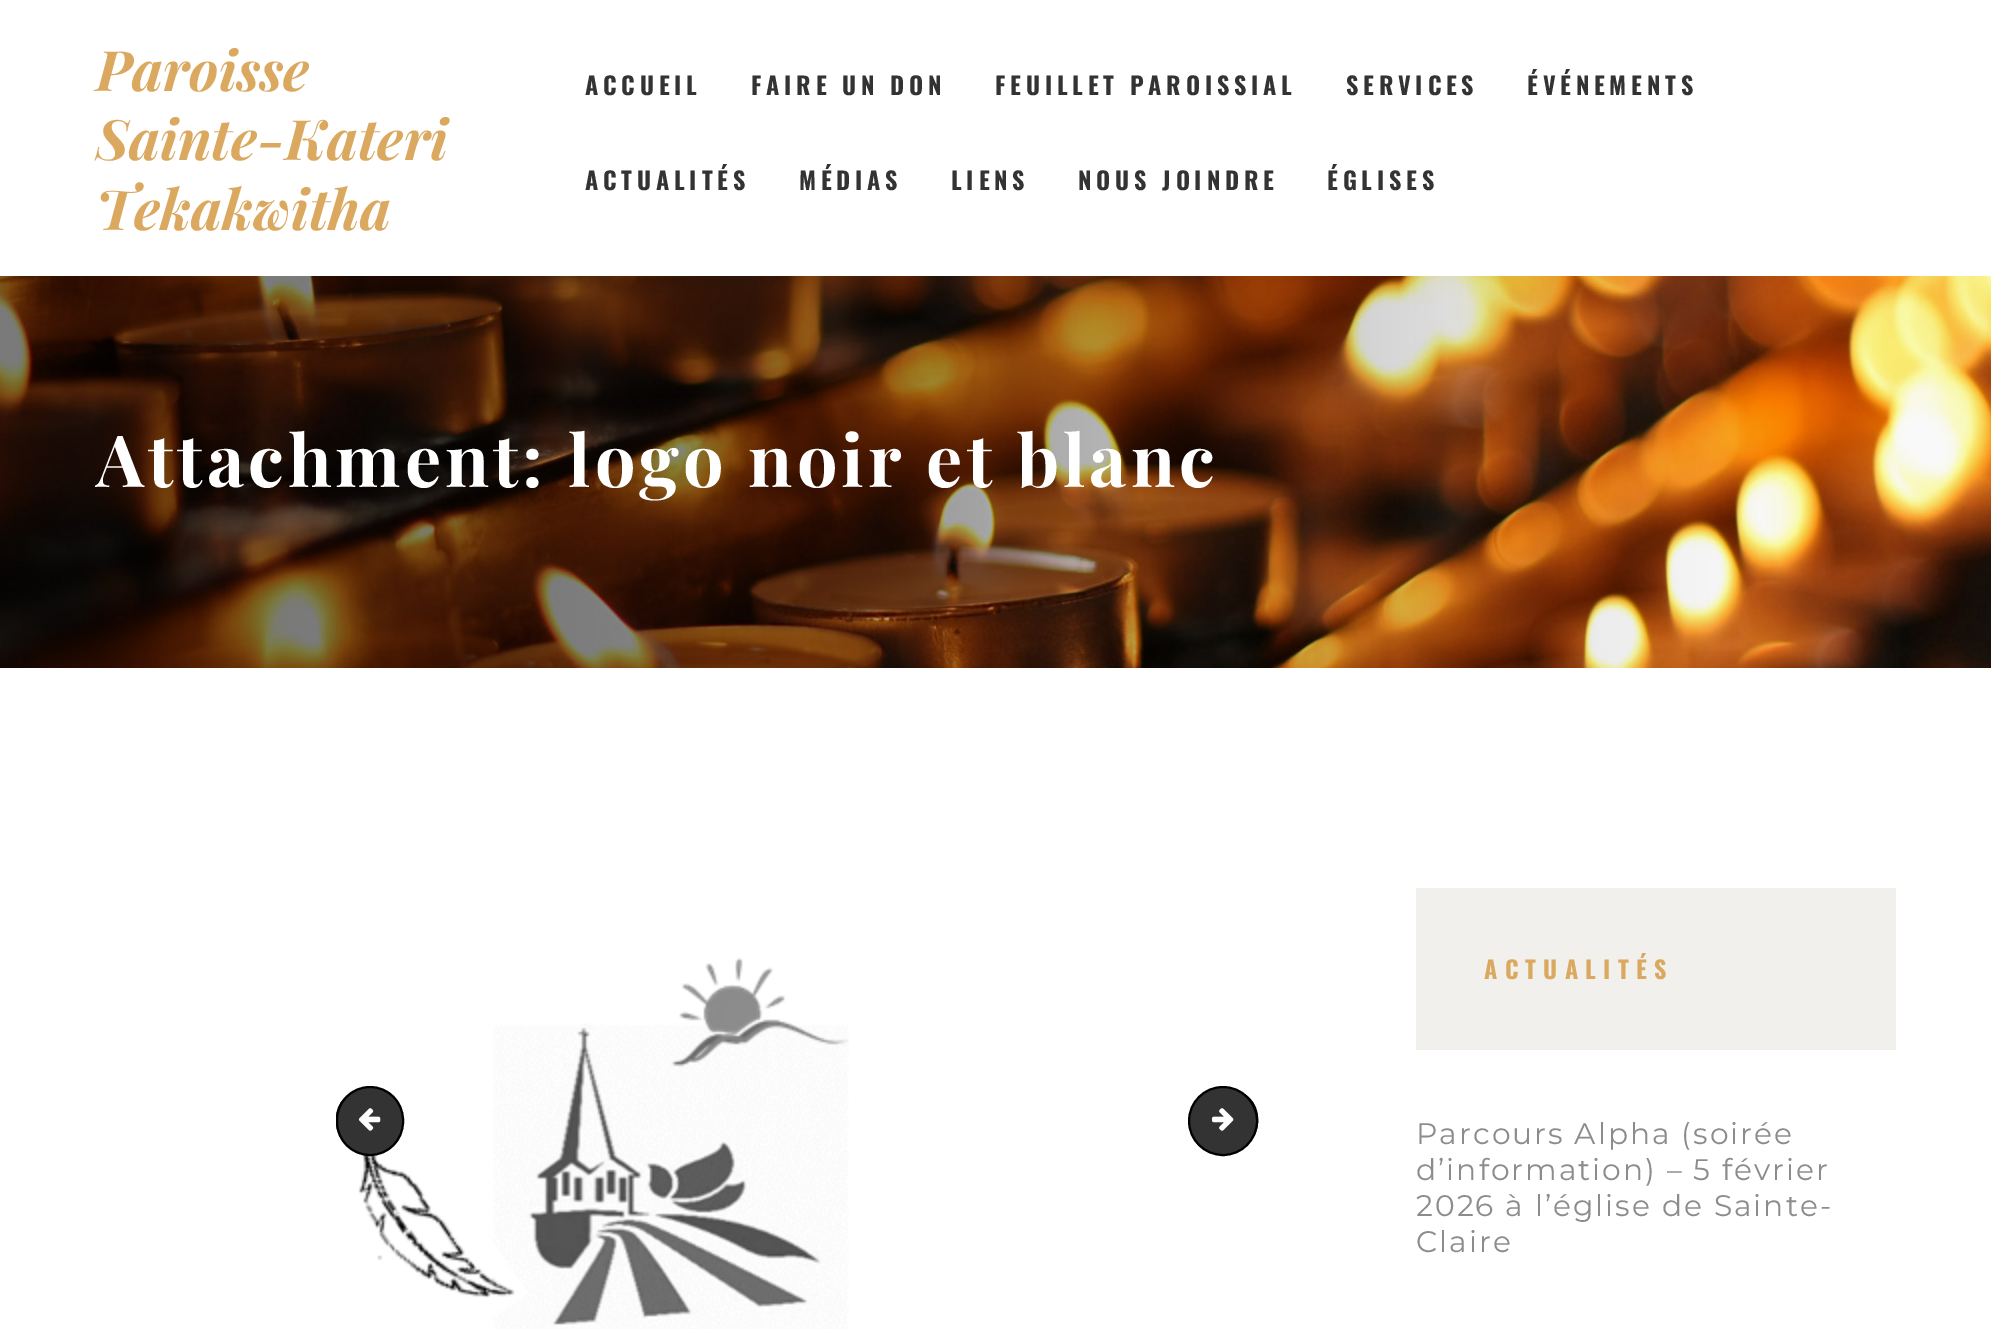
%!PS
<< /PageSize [1991 1329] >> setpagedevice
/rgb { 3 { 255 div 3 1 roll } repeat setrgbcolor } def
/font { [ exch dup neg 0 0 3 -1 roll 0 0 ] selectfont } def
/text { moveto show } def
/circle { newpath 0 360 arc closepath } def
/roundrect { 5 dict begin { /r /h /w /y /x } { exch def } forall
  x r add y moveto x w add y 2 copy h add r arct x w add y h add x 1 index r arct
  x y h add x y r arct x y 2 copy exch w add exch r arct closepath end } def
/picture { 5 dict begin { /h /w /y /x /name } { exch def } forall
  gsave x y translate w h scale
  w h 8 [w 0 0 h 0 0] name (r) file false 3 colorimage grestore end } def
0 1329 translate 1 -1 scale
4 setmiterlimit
255 255 255 rgb
0 0 1991 1329 rectfill
(img_01.rgb) 0 276 1991 392 picture
(img_02.rgb) 358 957 491 372 picture
0 0 0 rgb
2 setlinewidth
337 1091 54 58 27 roundrect stroke
51 51 51 rgb
337 1087 66 68 33 roundrect gsave fill grestore
0 0 0 rgb
stroke
(img_03.rgb) 358 1108 23 23 picture
1203 1091 54 58 27 roundrect stroke
51 51 51 rgb
1223 1121 34 circle gsave fill grestore
0 0 0 rgb
stroke
(img_04.rgb) 1212 1108 22 23 picture
242 240 236 rgb
1416 888 480 162 rectfill
/PlayfairDisplay-BoldItalic 55.75 font
219 168 96 rgb
(Paroisse) 96 91 text
(Sainte-Kateri) 96 160 text
(Tekakwitha) 96 230 text
/Oswald-Bold 24.1 font
51 51 51 rgb
585 95 moveto 4.8 0 (ACCUEIL) ashow
751 95 moveto 4.8 0 (FAIRE UN DON) ashow
995 95 moveto 4.8 0 (FEUILLET PAROISSIAL) ashow
1346 95 moveto 4.8 0 (SERVICES) ashow
1527 95 moveto 4.8 0 (ÉVÉNEMENTS) ashow
585 190 moveto 4.8 0 (ACTUALITÉS) ashow
799 190 moveto 4.8 0 (MÉDIAS) ashow
951 190 moveto 4.8 0 (LIENS) ashow
1078 190 moveto 4.8 0 (NOUS JOINDRE) ashow
1327 190 moveto 4.8 0 (ÉGLISES) ashow
/PlayfairDisplay-Bold 72 font
255 255 255 rgb
96 487 moveto 4 0 (Attachment: logo noir et blanc) ashow
/Oswald-Bold 24.1 font
219 168 96 rgb
1484 979 moveto 7.25 0 (ACTUALITÉS) ashow
/Montserrat-Regular 29.75 font
140 140 140 rgb
1416 1144 moveto 2 0 (Parcours Alpha \(soirée) ashow
1416 1180 moveto 2 0 (d’information\) – 5 février) ashow
1416 1216 moveto 2 0 (2026 à l’église de Sainte-) ashow
1416 1252 moveto 2 0 (Claire) ashow
showpage
